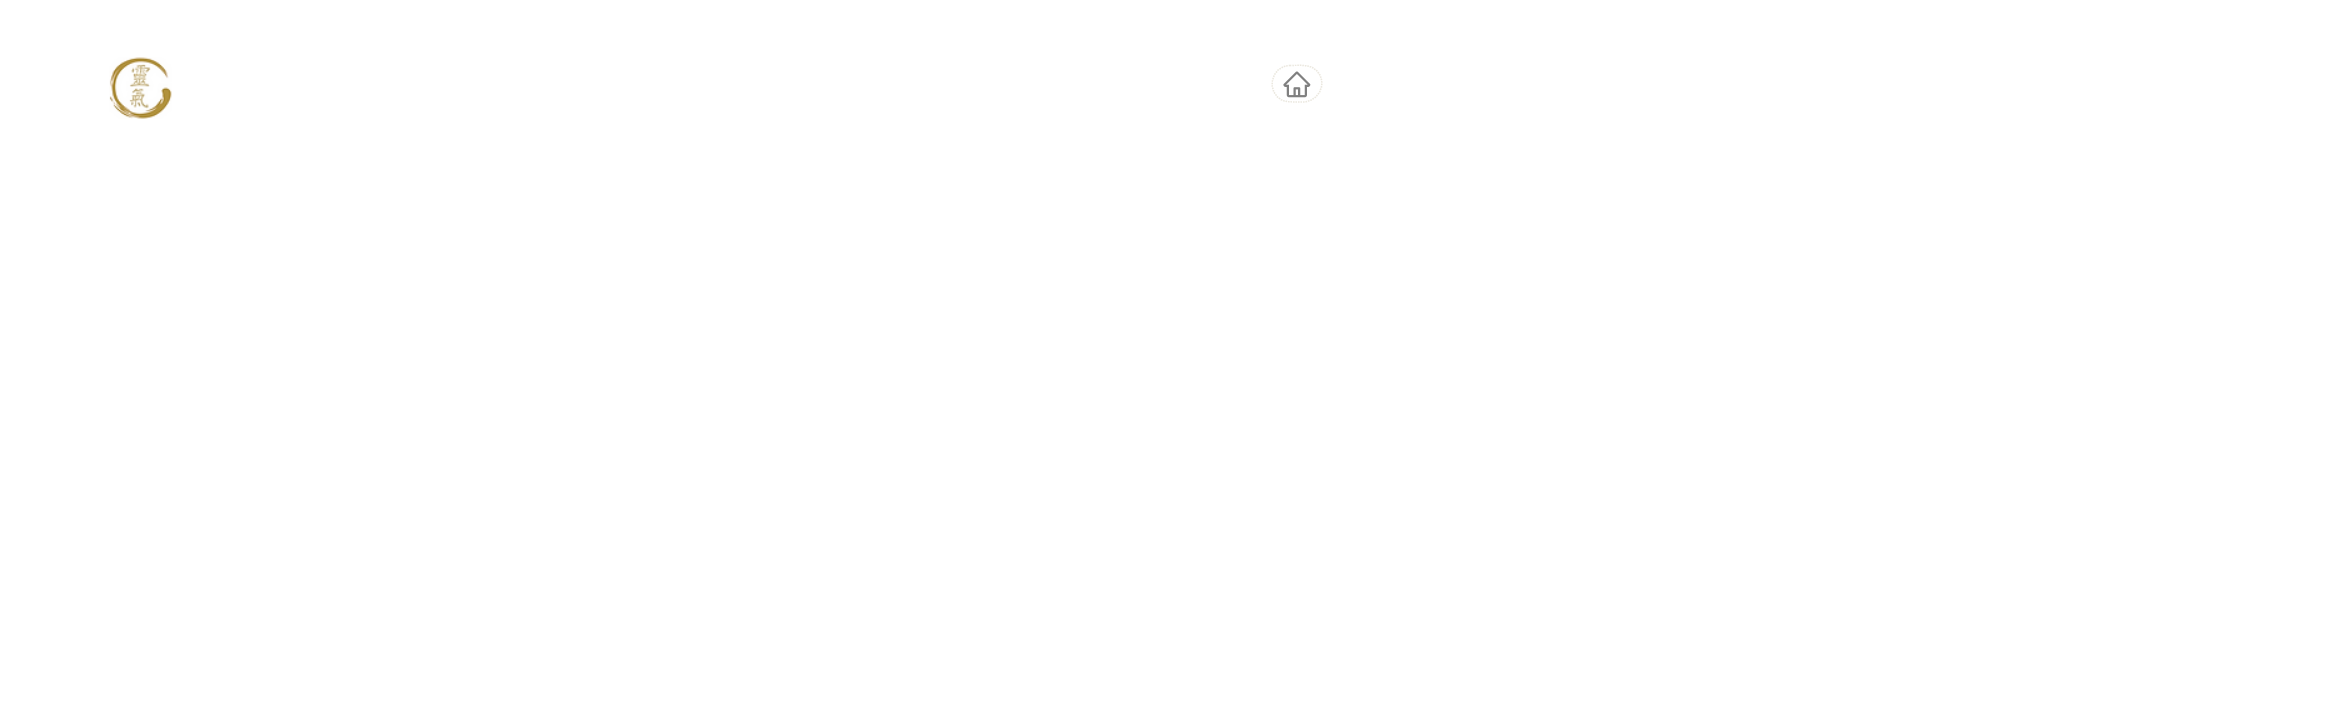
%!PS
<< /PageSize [2337 722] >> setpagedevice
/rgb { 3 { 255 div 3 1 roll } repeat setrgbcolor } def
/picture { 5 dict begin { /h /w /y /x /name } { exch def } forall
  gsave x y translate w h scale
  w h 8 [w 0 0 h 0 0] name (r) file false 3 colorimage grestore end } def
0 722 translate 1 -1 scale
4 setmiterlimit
255 255 255 rgb
0 0 2337 722 rectfill
(img_01.rgb) 109 57 63 62 picture
235 232 223 rgb
1.2 setlinewidth
[1.25 1.25] 0 setdash
1290 65.5 moveto 6.5 0 14.5 -1 21 1.5 rcurveto 18 7.5 12.5 33.5 -7 35 rcurveto -6 0 -15.5 0.5 -21 -1.5 rcurveto -18 -7.5 -12.5 -35 7 -35 rcurveto closepath stroke
(img_02.rgb) 1283 71 28 27 picture
showpage
